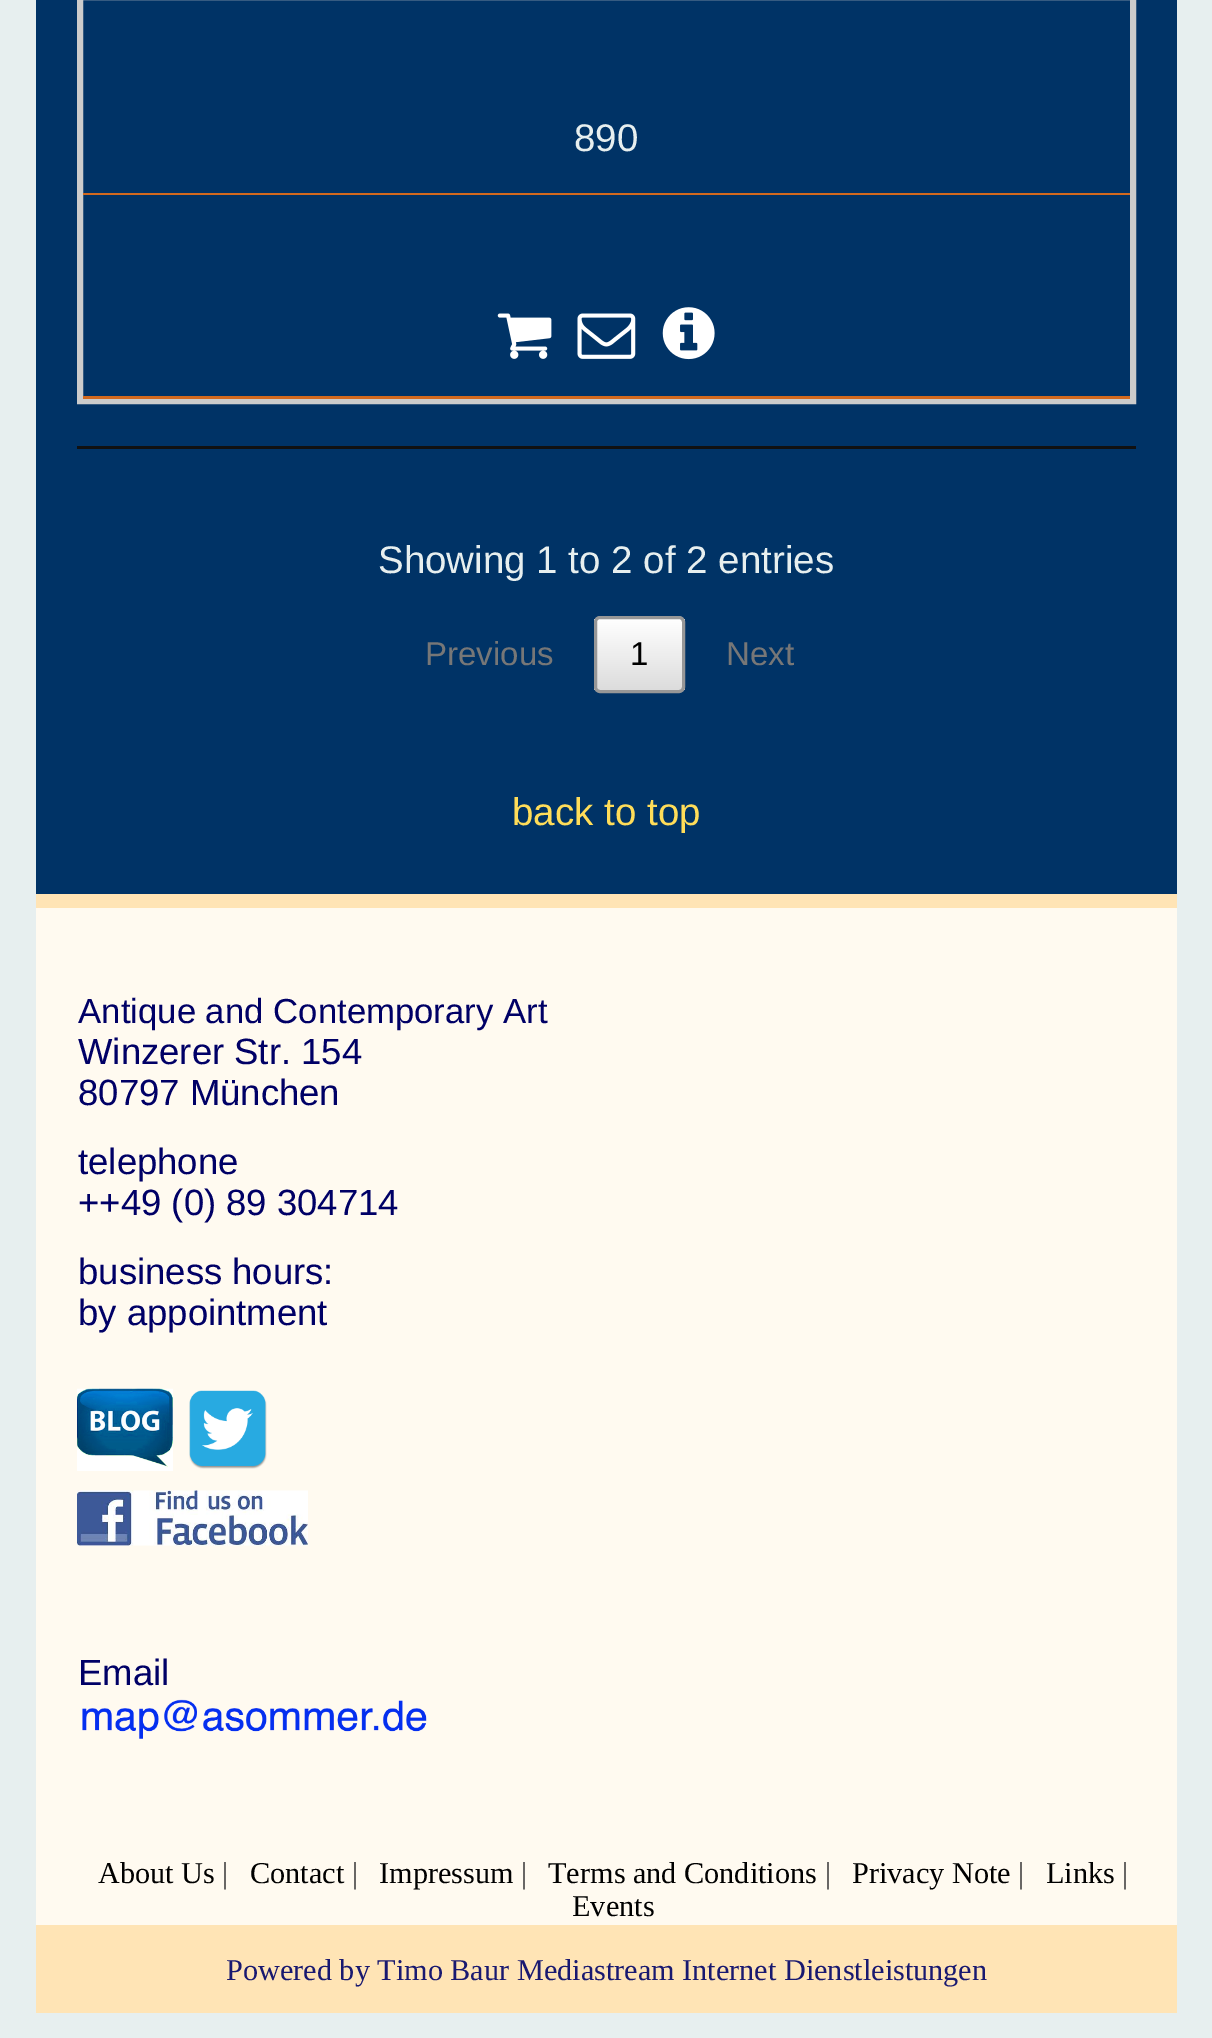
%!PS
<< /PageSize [1212 2038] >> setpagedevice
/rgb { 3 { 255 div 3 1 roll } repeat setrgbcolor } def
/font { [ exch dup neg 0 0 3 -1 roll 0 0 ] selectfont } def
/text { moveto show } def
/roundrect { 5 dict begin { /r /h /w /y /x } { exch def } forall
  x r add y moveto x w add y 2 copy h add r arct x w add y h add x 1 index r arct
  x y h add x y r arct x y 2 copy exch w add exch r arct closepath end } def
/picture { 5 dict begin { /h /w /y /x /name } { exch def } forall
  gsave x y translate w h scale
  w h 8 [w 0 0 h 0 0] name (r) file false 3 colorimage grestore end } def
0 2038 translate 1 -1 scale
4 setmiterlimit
231 239 239 rgb
0 0 1212 2038 rectfill
0 51 102 rgb
36 0 1141 894 rectfill
17 17 17 rgb
77 446 1059 3 rectfill
204 204 204 rgb
6 setlinewidth
80 -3 1053 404 rectstroke
210 105 30 rgb
83 193 1047 2 rectfill
83 396 1047 3 rectfill
(img_01.rgb) 497 313 55 46 picture
(img_02.rgb) 577 313 59 46 picture
(img_03.rgb) 662 307 53 53 picture
gsave
594 616 91 77 6 roundrect clip newpath
gsave 594 619 moveto 91 0 rlineto 0 71 rlineto -91 0 rlineto closepath clip newpath
<< /ShadingType 2 /ColorSpace /DeviceRGB /Coords [639 619 639 690] /Extend [true true] /Function << /FunctionType 2 /Domain [0 1] /C0 [1 1 1] /C1 [0.863 0.863 0.863] /N 1 >> >> shfill grestore
grestore
151 151 151 rgb
3 setlinewidth
595.5 617.5 88 74 4.5 roundrect stroke
255 228 181 rgb
36 894 1141 14 rectfill
255 250 240 rgb
36 908 1141 1017 rectfill
(img_04.rgb) 77 1388 96 83 picture
(img_05.rgb) 189 1390 78 79 picture
(img_06.rgb) 77 1490 231 56 picture
(img_07.rgb) 82 1699 345 40 picture
255 228 181 rgb
36 1925 1141 88 rectfill
/LiberationSans-Regular 38.5 font
231 239 239 rgb
(890) 574 151 text
(Showing 1 to 2 of 2 entries) 378 573 text
/LiberationSans-Regular 33 font
119 119 119 rgb
(Previous) 425 665 text
0 0 0 rgb
(1) 630 665 text
119 119 119 rgb
(Next) 726 665 text
/LiberationSans-Regular 38.5 font
255 221 89 rgb
(back to top) 512 825 text
/LiberationSans-Regular 34.75 font
0 0 102 rgb
(Antique and Contemporary Art) 78 1023 text
/LiberationSans-Regular 36.5 font
(Winzerer Str. 154) 78 1064 text
(80797 München) 78 1105 text
(telephone) 78 1174 text
(++49 \(0\) 89 304714) 78 1215 text
(business hours:) 78 1284 text
(by appointment) 78 1325 text
(Email) 78 1685 text
/LiberationSerif-Regular 30.25 font
0 0 0 rgb
(About Us) 98 1883 text
51 51 51 rgb
(|) 222 1883 text
0 0 0 rgb
(Contact) 250 1883 text
51 51 51 rgb
(|) 352 1883 text
0 0 0 rgb
(Impressum) 379 1883 text
51 51 51 rgb
(|) 521 1883 text
0 0 0 rgb
(Terms and Conditions) 548 1883 text
51 51 51 rgb
(|) 825 1883 text
0 0 0 rgb
(Privacy Note) 852 1883 text
51 51 51 rgb
(|) 1018 1883 text
0 0 0 rgb
(Links) 1046 1883 text
51 51 51 rgb
(|) 1122 1883 text
0 0 0 rgb
(Events) 572 1916 text
25 25 112 rgb
(Powered by Timo Baur Mediastream Internet Dienstleistungen) 226 1980 text
showpage
